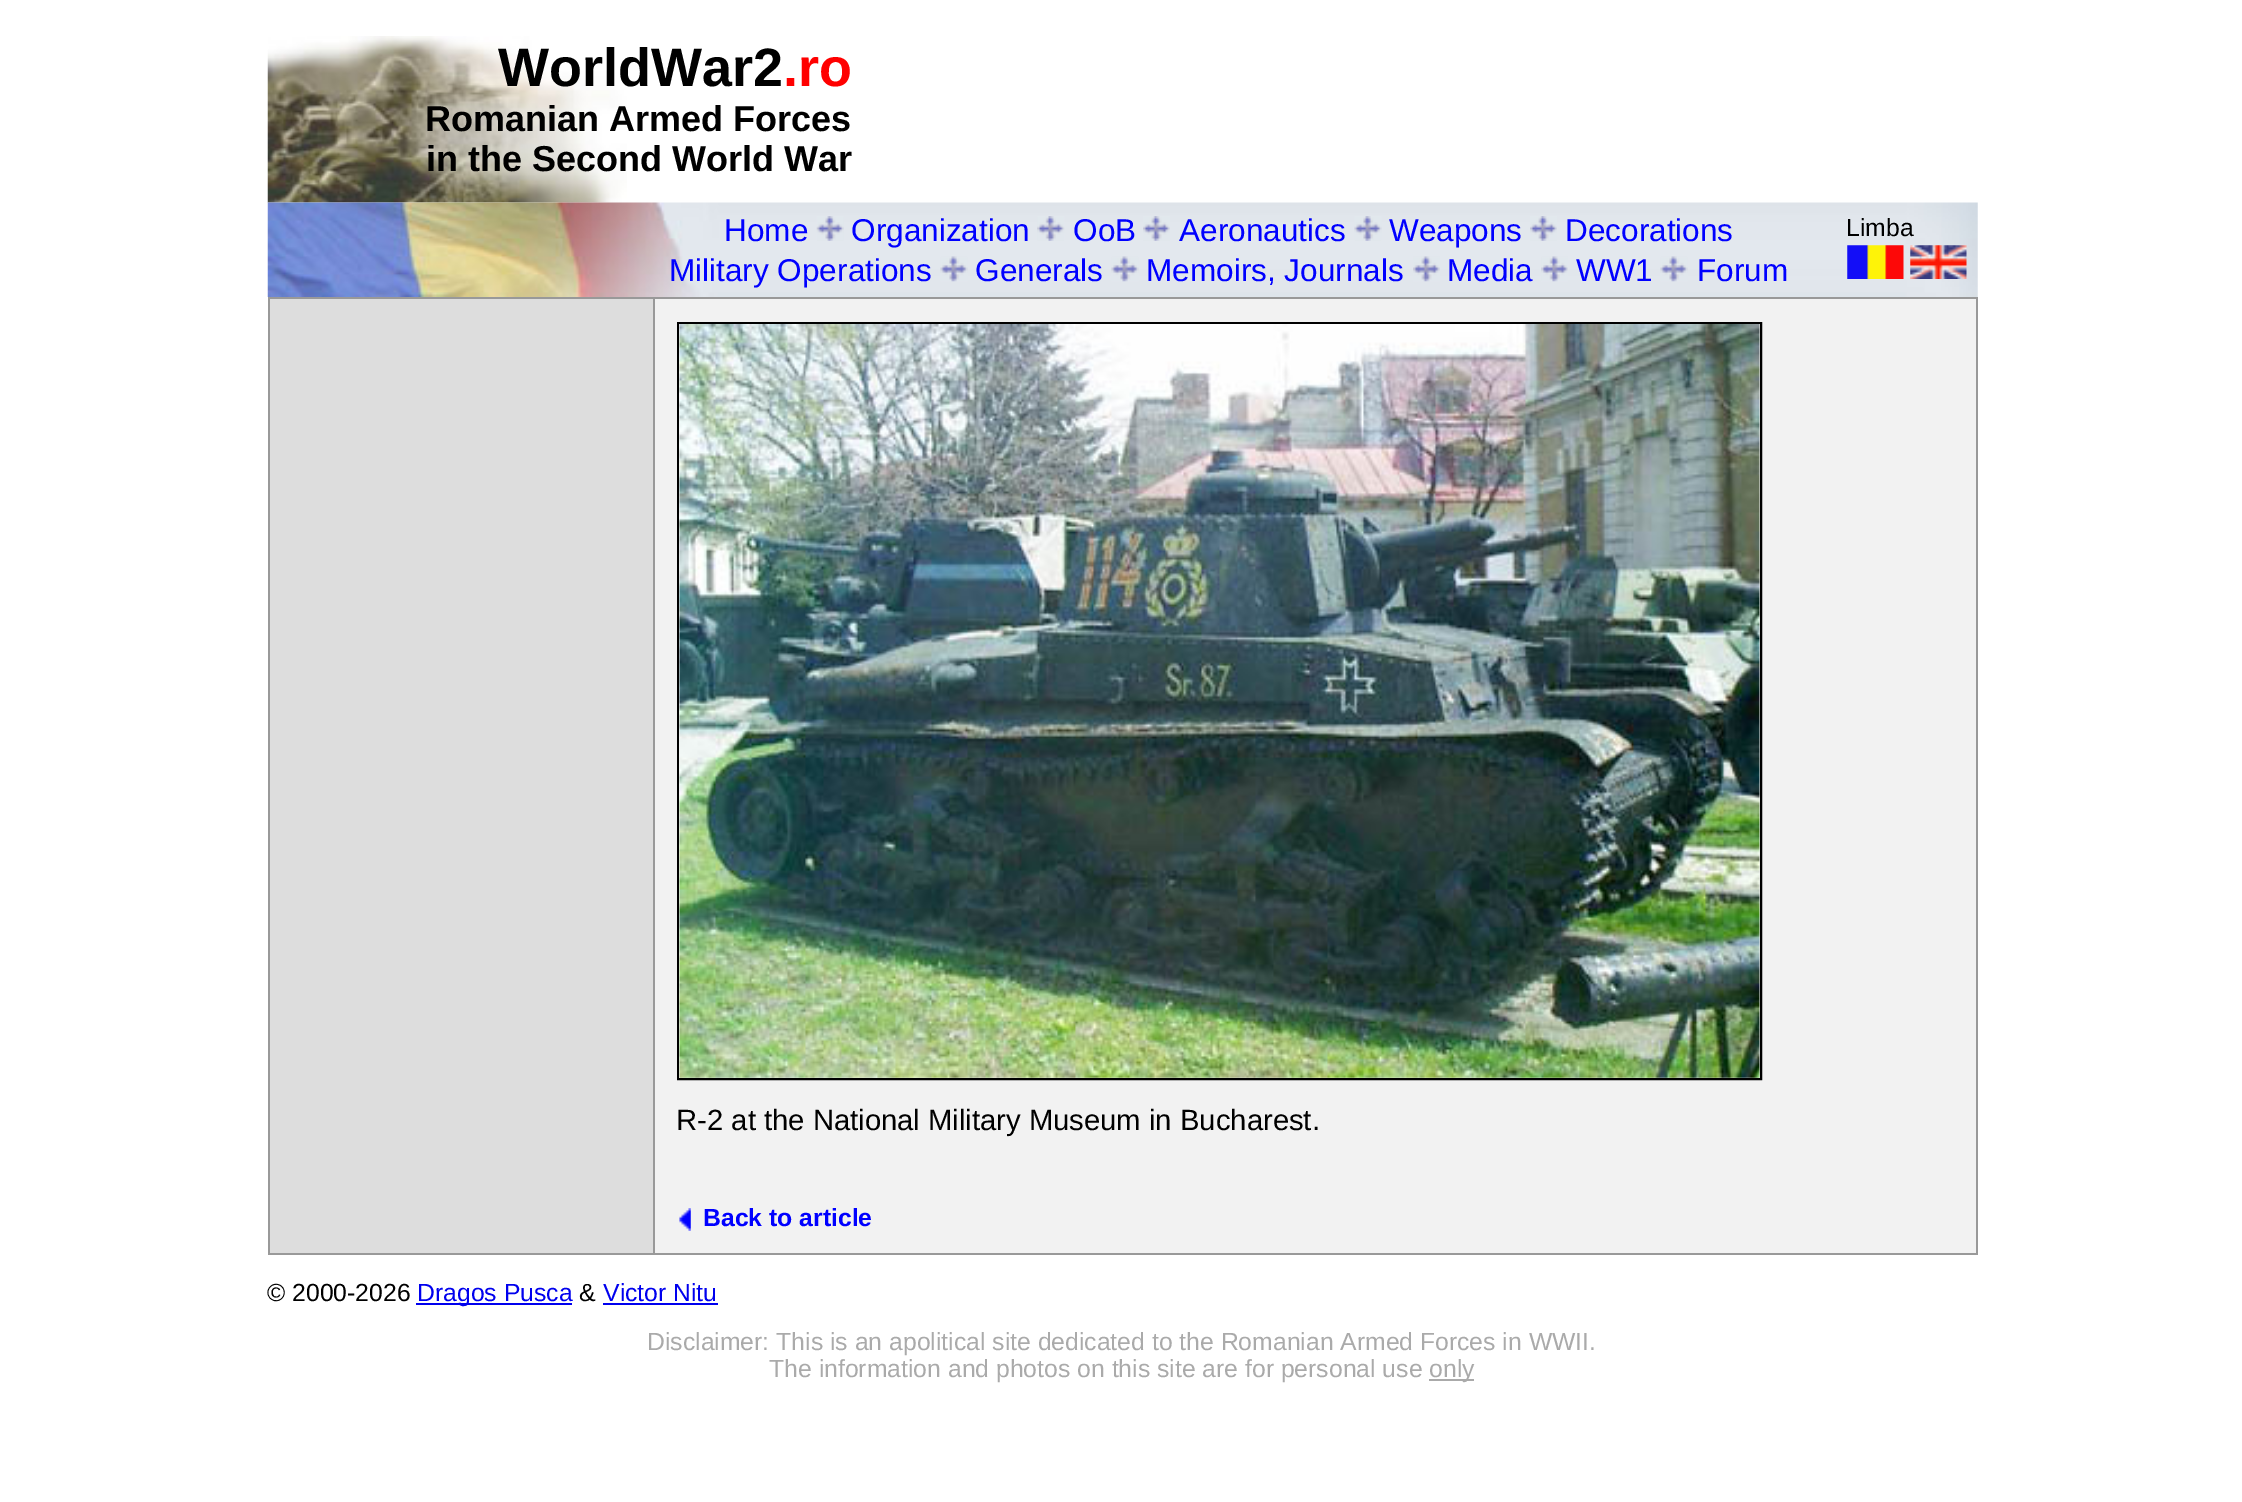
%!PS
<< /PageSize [2242 1502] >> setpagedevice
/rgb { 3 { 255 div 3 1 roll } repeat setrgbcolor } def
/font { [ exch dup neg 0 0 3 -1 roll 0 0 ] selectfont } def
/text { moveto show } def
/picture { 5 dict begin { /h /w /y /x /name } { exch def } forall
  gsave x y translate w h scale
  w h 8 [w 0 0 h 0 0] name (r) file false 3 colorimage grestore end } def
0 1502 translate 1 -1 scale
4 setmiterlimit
255 255 255 rgb
0 0 2242 1502 rectfill
(img_01.rgb) 267 36 360 167 picture
(img_02.rgb) 267 202 1711 95 picture
(img_03.rgb) 816 216 28 25 picture
(img_04.rgb) 1037 216 28 25 picture
(img_05.rgb) 1143 216 27 25 picture
(img_06.rgb) 1354 216 28 25 picture
(img_05.rgb) 1530 216 27 25 picture
(img_07.rgb) 940 256 28 26 picture
(img_07.rgb) 1111 256 28 26 picture
(img_08.rgb) 1413 256 27 26 picture
(img_09.rgb) 1541 256 27 26 picture
(img_07.rgb) 1660 256 28 26 picture
(img_10.rgb) 1847 245 57 34 picture
(img_11.rgb) 1910 245 57 34 picture
153 153 153 rgb
268 297 1710 2 rectfill
268 299 2 954 rectfill
221 221 221 rgb
270 299 383 954 rectfill
153 153 153 rgb
653 299 2 954 rectfill
242 242 242 rgb
655 299 1321 954 rectfill
0 0 0 rgb
2 setlinewidth
678 323 1083 756 rectstroke
(img_12.rgb) 679 324 1081 754 picture
(img_13.rgb) 679 1208 12 23 picture
153 153 153 rgb
1976 299 2 954 rectfill
268 1253 1710 2 rectfill
0 0 238 rgb
416 1303 156 2 rectfill
603 1303 115 2 rectfill
170 170 170 rgb
1429 1379 45 2 rectfill
/LiberationSans-Bold 54 font
0 0 0 rgb
(WorldWar2) 498 86 text
255 0 0 rgb
(.ro) 783 86 text
/LiberationSans-Bold 36 font
0 0 0 rgb
(Romanian Armed Forces) 425 131 text
(in the Second World War) 426 171 text
/LiberationSans-Regular 31.5 font
0 0 255 rgb
(Home) 724 241 text
(Organization) 851 241 text
(OoB) 1073 241 text
(Aeronautics) 1179 241 text
(Weapons) 1389 241 text
(Decorations) 1565 241 text
(Military Operations) 669 281 text
(Generals) 975 281 text
(Memoirs, Journals) 1146 281 text
(Media) 1447 281 text
(WW1) 1576 281 text
(Forum) 1697 281 text
/LiberationSans-Regular 24.75 font
0 0 0 rgb
(Limba) 1846 236 text
/LiberationSans-Regular 29.25 font
(R-2 at the National Military Museum in Bucharest.) 676 1130 text
/LiberationSans-Bold 24.75 font
0 0 255 rgb
(Back to article) 703 1226 text
/LiberationSans-Regular 24.75 font
0 0 0 rgb
(© 2000-2026) 267 1301 text
0 0 238 rgb
(Dragos Pusca) 417 1301 text
0 0 0 rgb
(&) 579 1301 text
0 0 238 rgb
(Victor Nitu) 603 1301 text
170 170 170 rgb
(Disclaimer: This is an apolitical site dedicated to the Romanian Armed Forces in WWII.) 647 1350 text
(The information and photos on this site are for personal use) 769 1377 text
(only) 1429 1377 text
showpage
